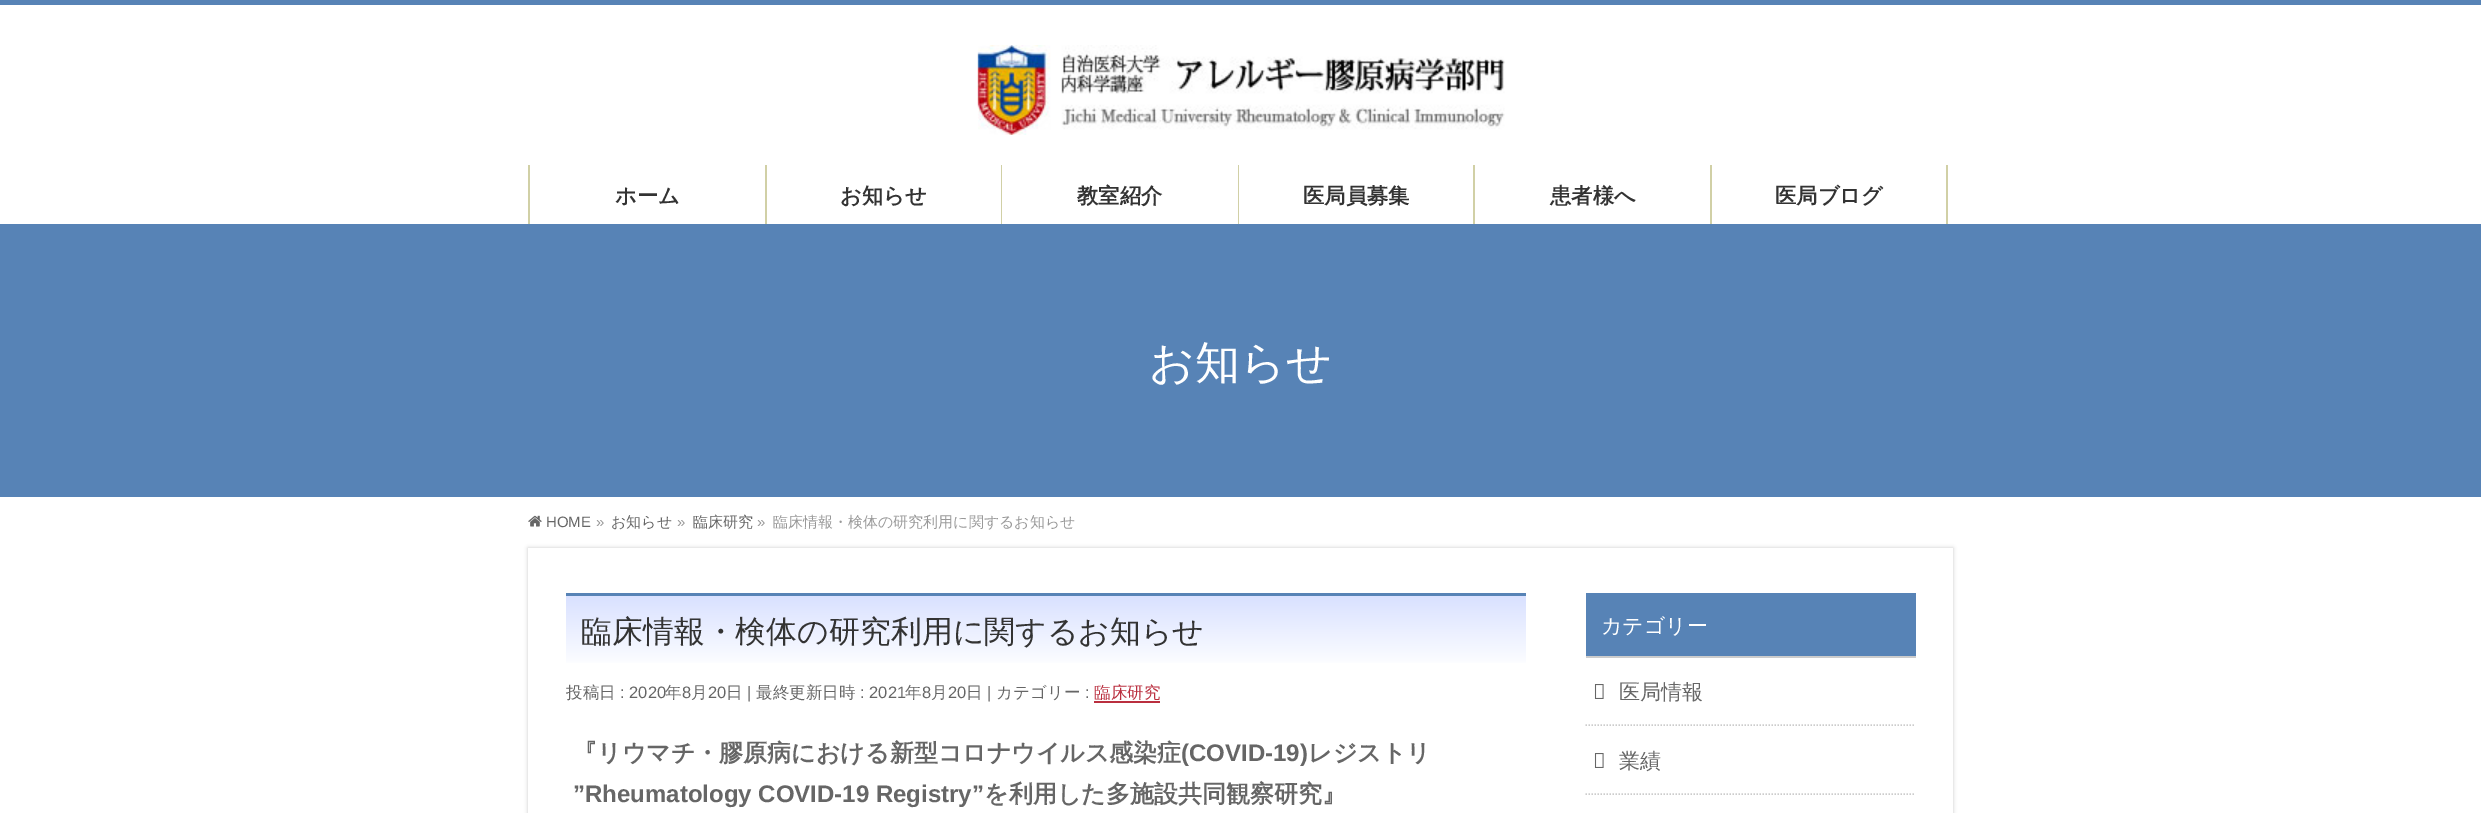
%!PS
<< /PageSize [2481 813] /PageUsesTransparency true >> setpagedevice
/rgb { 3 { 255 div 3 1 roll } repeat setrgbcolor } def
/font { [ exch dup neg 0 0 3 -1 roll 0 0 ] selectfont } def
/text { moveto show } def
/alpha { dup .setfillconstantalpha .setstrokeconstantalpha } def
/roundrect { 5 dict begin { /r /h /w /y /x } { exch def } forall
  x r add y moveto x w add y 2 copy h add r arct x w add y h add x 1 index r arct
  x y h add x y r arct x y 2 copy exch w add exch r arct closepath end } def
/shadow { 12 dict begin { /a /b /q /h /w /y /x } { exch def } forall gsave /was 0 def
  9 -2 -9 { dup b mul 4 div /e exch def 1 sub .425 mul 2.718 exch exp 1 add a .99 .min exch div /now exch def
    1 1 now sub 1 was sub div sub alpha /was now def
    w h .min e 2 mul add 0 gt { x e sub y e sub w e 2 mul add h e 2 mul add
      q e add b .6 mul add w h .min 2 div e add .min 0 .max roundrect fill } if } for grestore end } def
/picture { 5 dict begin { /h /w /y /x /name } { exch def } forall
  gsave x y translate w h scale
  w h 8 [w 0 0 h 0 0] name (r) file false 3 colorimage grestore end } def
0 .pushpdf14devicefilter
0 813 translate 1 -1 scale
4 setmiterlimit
255 255 255 rgb
0 0 2481 813 rectfill
87 131 182 rgb
0 0 2481 5 rectfill
(img_01.rgb) 977 45 528 90 picture
209 208 166 rgb
528 165 2 59 rectfill
765 165 2 59 rectfill
1001 165 1 59 rectfill
1238 165 1 59 rectfill
1473 165 2 59 rectfill
1710 165 2 59 rectfill
1946 165 2 59 rectfill
87 131 182 rgb
0 224 2481 273 rectfill
(img_02.rgb) 528 515 14 12 picture
gsave
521 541 moveto 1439 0 rlineto 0 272 rlineto -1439 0 rlineto closepath 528 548 moveto 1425 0 rlineto 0 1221 rlineto -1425 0 rlineto closepath eoclip newpath
0 0 0 rgb
528 548 1425 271 0 2 0.2 shadow
grestore
gsave 566 596 moveto 960 0 rlineto 0 67 rlineto -960 0 rlineto closepath clip newpath
<< /ShadingType 2 /ColorSpace /DeviceRGB /Coords [1046 595 1046 668] /Extend [true true] /Function << /FunctionType 2 /Domain [0 1] /C0 [0.847 0.882 1] /C1 [1 1 1] /N 1 >> >> shfill grestore
566 593 960 3 rectfill
186 47 63 rgb
1094 701 66 2 rectfill
87 131 182 rgb
1586 593 330 63 rectfill
204 204 204 rgb
1586 656 330 2 rectfill
1.5 setlinewidth
[1.5 1.5] 0 setdash
1585.5 725 moveto 330 0 rlineto stroke
(img_03.rgb) 1594 684 10 15 picture
1585.5 794 moveto 330 0 rlineto stroke
(img_03.rgb) 1594 753 10 15 picture
/WenQuanYiZenHei-Bold 21.25 font
51 51 51 rgb
(ホーム) 615 203 text
(お知らせ) 840 203 text
(教室紹介) 1077 203 text
(医局員募集) 1303 203 text
(患者様へ) 1550 203 text
(医局ブログ) 1775 203 text
/WenQuanYiZenHei-Medium 45 font
255 255 255 rgb
(お知らせ) 1149 378 text
/LiberationSans-Regular 15 font
102 102 102 rgb
(HOME) 546 527 text
153 153 153 rgb
(») 596 527 text
/WenQuanYiZenHei-Medium 15 font
102 102 102 rgb
(お知らせ) 611 527 text
/LiberationSans-Regular 15 font
153 153 153 rgb
(») 677 527 text
/WenQuanYiZenHei-Medium 15 font
102 102 102 rgb
(臨床研究) 693 527 text
/LiberationSans-Regular 15 font
153 153 153 rgb
(») 757 527 text
/WenQuanYiZenHei-Medium 15 font
(臨床情報・検体の研究利用に関するお知らせ) 773 527 text
/WenQuanYiZenHei-Medium 30.9 font
51 51 51 rgb
(臨床情報・検体の研究利用に関するお知らせ) 581 642 text
/WenQuanYiZenHei-Medium 16.5 font
102 102 102 rgb
(投稿日) 566 698 text
/LiberationSans-Regular 16.5 font
(: 2020) 620 698 text
/WenQuanYiZenHei-Medium 16.5 font
(年) 665 698 text
/LiberationSans-Regular 16.5 font
(8) 682 698 text
/WenQuanYiZenHei-Medium 16.5 font
(月) 691 698 text
/LiberationSans-Regular 16.5 font
(20) 708 698 text
/WenQuanYiZenHei-Medium 16.5 font
(日) 726 698 text
/LiberationSans-Regular 16.5 font
(|) 747 698 text
/WenQuanYiZenHei-Medium 16.5 font
(最終更新日時) 756 698 text
/LiberationSans-Regular 16.5 font
(: 2021) 860 698 text
/WenQuanYiZenHei-Medium 16.5 font
(年) 905 698 text
/LiberationSans-Regular 16.5 font
(8) 922 698 text
/WenQuanYiZenHei-Medium 16.5 font
(月) 931 698 text
/LiberationSans-Regular 16.5 font
(20) 948 698 text
/WenQuanYiZenHei-Medium 16.5 font
(日) 966 698 text
/LiberationSans-Regular 16.5 font
(|) 987 698 text
/WenQuanYiZenHei-Medium 16.5 font
(カテゴリー) 996 698 text
/LiberationSans-Regular 16.5 font
(:) 1085 698 text
/WenQuanYiZenHei-Medium 16.5 font
186 47 63 rgb
(臨床研究) 1094 698 text
/WenQuanYiZenHei-Bold 24 font
102 102 102 rgb
(『リウマチ・膠原病における新型コロナウイルス感染症) 573 761 text
/LiberationSans-Bold 24 font
(\(COVID-19\)) 1181 761 text
/WenQuanYiZenHei-Bold 24 font
(レジストリ) 1308 761 text
/LiberationSans-Bold 24 font
(”Rheumatology COVID-19 Registry”) 573 802 text
/WenQuanYiZenHei-Bold 24 font
(を利用した多施設共同観察研究』) 984 802 text
/WenQuanYiZenHei-Medium 21 font
255 255 255 rgb
(カテゴリー) 1601 633 text
102 102 102 rgb
(医局情報) 1619 699 text
(業績) 1619 768 text
.poppdf14devicefilter showpage
